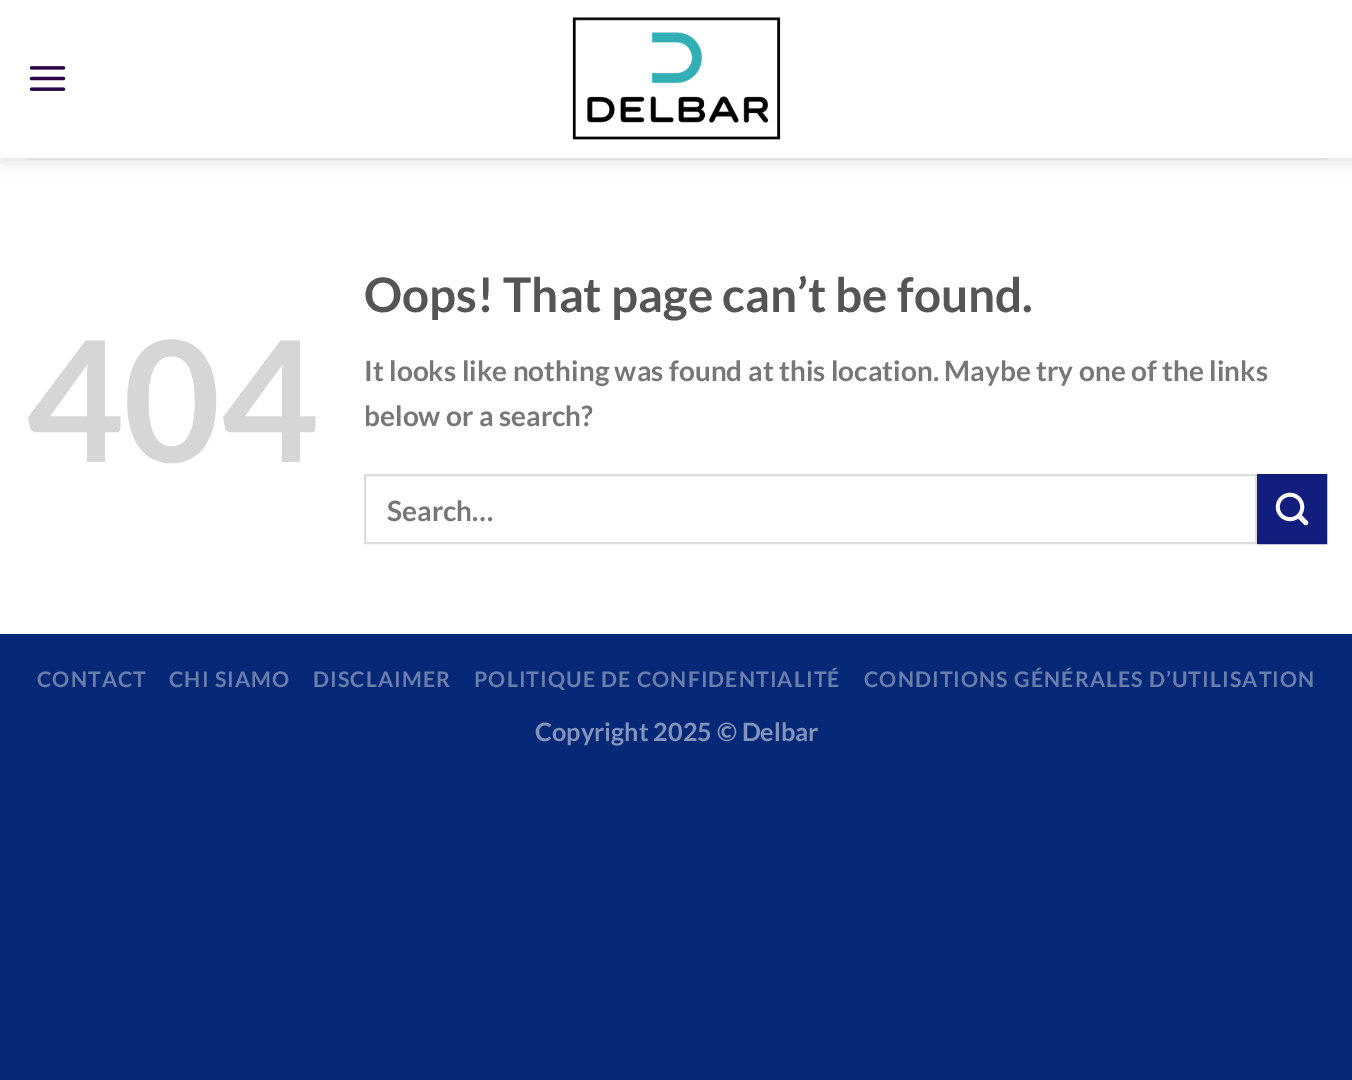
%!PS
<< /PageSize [1352 1080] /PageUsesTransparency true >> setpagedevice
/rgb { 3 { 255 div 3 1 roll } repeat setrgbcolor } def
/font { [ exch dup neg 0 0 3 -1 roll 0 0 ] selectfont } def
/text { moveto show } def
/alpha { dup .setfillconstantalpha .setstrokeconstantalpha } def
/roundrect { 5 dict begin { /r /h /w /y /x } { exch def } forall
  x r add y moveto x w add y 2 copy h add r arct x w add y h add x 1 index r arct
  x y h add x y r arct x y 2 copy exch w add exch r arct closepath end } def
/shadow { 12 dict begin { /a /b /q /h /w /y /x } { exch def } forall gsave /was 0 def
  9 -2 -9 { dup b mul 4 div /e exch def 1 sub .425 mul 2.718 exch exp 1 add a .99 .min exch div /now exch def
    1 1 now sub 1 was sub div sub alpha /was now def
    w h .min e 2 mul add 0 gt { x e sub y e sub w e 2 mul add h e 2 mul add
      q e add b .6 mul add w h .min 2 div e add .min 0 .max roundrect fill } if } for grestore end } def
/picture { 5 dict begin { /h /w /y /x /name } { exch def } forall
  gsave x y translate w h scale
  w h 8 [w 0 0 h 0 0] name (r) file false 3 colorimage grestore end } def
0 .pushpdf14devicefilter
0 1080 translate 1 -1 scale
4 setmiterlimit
5 40 118 rgb
0 0 1352 1080 rectfill
255 255 255 rgb
0 158 1352 476 rectfill
0 0 0 rgb
2 2 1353 157 0 9 0.15 shadow
255 255 255 rgb
0 0 1352 158 rectfill
(img_01.rgb) 29 66 37 25 picture
(img_02.rgb) 572 17 209 123 picture
224 224 224 rgb
26 158 1301 2 rectfill
221 221 221 rgb
2 setlinewidth
365 475 891 68 rectstroke
18 30 126 rgb
1258 475 moveto 68 0 rlineto 0 68 rlineto -68 0 rlineto closepath gsave fill grestore
17 29 120 rgb
stroke
(img_03.rgb) 1275 492 34 34 picture
/Lato-Bold 168 font
214 214 214 rgb
(404) 26 462 text
/Lato-Bold 47.6 font
85 85 85 rgb
(Oops! That page can’t be found.) 364 312 text
/Lato-Bold 28 font
119 119 119 rgb
(It looks like nothing was found at this location. Maybe try one of the links) 364 381 text
(below or a search?) 364 426 text
(Search…) 387 521 text
/Lato-Bold 21.4 font
105 126 173 rgb
37 687 moveto 1.05 0 (CONTACT) ashow
169 687 moveto 1.05 0 (CHI SIAMO) ashow
313 687 moveto 1.05 0 (DISCLAIMER) ashow
474 687 moveto 1.05 0 (POLITIQUE DE CONFIDENTIALITÉ) ashow
864 687 moveto 1.05 0 (CONDITIONS GÉNÉRALES D’UTILISATION) ashow
/Lato-Bold 25.25 font
130 148 187 rgb
(Copyright 2025 © Delbar) 535 741 text
.poppdf14devicefilter showpage
